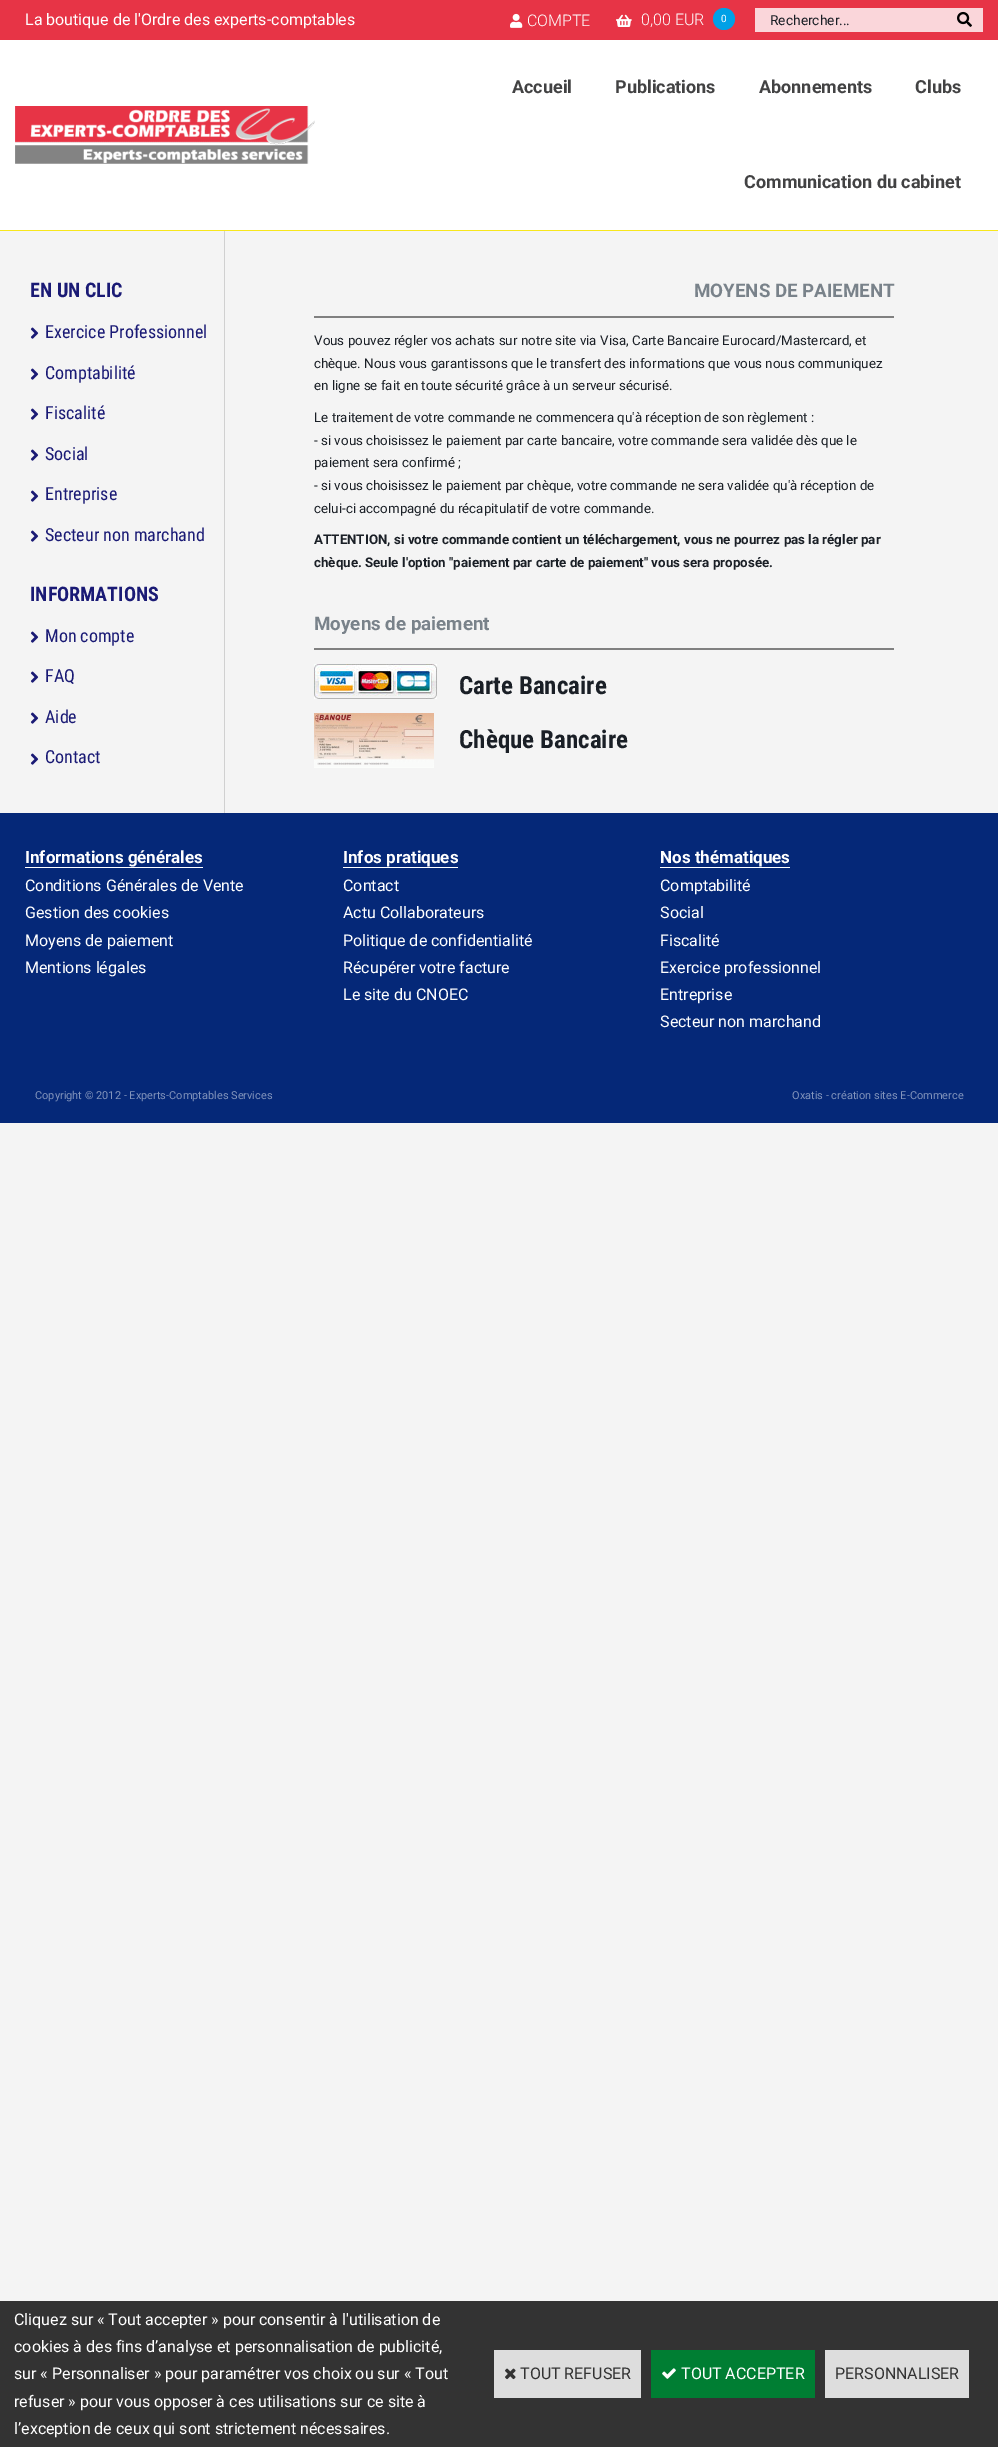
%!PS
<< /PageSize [998 2447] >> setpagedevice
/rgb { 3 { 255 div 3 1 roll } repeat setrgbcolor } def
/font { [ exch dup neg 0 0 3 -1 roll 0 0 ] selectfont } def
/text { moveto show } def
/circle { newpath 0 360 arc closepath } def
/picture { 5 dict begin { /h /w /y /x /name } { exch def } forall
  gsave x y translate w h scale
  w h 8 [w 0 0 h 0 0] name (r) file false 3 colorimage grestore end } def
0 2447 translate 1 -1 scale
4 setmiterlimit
244 244 244 rgb
0 0 998 2447 rectfill
255 255 255 rgb
0 40 998 190 rectfill
248 231 28 rgb
0 230 998 1 rectfill
231 52 70 rgb
0 0 998 40 rectfill
(img_01.rgb) 510 13 13 15 picture
(img_02.rgb) 616 14 16 13 picture
0 160 230 rgb
724 19 11 circle fill
250 214 218 rgb
755 8 228 24 rectfill
(img_03.rgb) 957 11 15 16 picture
(img_04.rgb) 15 106 300 58 picture
208 208 208 rgb
224 231 1 582 rectfill
(img_05.rgb) 30 327 9 12 picture
(img_05.rgb) 30 368 9 12 picture
(img_05.rgb) 30 408 9 12 picture
(img_05.rgb) 30 449 9 12 picture
(img_05.rgb) 30 490 9 12 picture
(img_05.rgb) 30 530 9 12 picture
(img_05.rgb) 30 631 9 12 picture
(img_05.rgb) 30 671 9 12 picture
(img_05.rgb) 30 712 9 12 picture
(img_05.rgb) 30 753 9 12 picture
128 128 128 rgb
314 316 580 2 rectfill
314 648 580 2 rectfill
(img_06.rgb) 314 664 123 35 picture
(img_07.rgb) 314 713 120 55 picture
5 40 120 rgb
0 813 998 310 rectfill
255 255 255 rgb
25 867 178 1 rectfill
343 867 115 1 rectfill
660 867 130 1 rectfill
51 51 51 rgb
0 2301 998 146 rectfill
221 221 221 rgb
494 2350 147 48 rectfill
(img_08.rgb) 505 2368 11 12 picture
0 126 51 rgb
651 2350 164 48 rectfill
(img_09.rgb) 662 2368 14 11 picture
221 221 221 rgb
825 2350 144 48 rectfill
/Roboto-Regular 16 font
255 255 255 rgb
(La boutique de l'Ordre des experts-comptables) 25 25 text
/Roboto-Light 16 font
(COMPTE) 527 26 text
(0,00 EUR) 641 25 text
/Roboto-Regular 10 font
(0) 721 22 text
/Roboto-Regular 13.75 font
26 31 38 rgb
(Rechercher...) 770 25 text
/Roboto-Bold 18 font
66 66 67 rgb
(Accueil) 512 93 text
(Publications) 615 93 text
(Abonnements) 759 93 text
(Clubs) 915 93 text
(Communication du cabinet) 744 188 text
/RobotoCondensed-Bold 20 font
26 26 117 rgb
(EN UN CLIC) 30 297 text
/RobotoCondensed-Regular 18 font
(Exercice Professionnel) 45 338 text
(Comptabilité) 45 379 text
(Fiscalité) 45 419 text
(Social) 45 460 text
(Entreprise) 45 500 text
(Secteur non marchand) 45 541 text
/RobotoCondensed-Bold 20 font
(INFORMATIONS) 30 601 text
/RobotoCondensed-Regular 18 font
(Mon compte) 45 642 text
(FAQ) 45 682 text
(Aide) 45 723 text
(Contact) 45 763 text
/Roboto-Bold 18.75 font
121 130 138 rgb
(MOYENS DE PAIEMENT) 694 297 text
/Roboto-Regular 13.35 font
26 31 38 rgb
(Vous pouvez régler vos achats sur notre site via Visa, Carte Bancaire Eurocard/Mastercard, et) 314 345 text
(chèque. Nous vous garantissons que le transfert des informations que vous nous communiquez) 314 368 text
(en ligne se fait en toute sécurité grâce à un serveur sécurisé.) 314 390 text
(Le traitement de votre commande ne commencera qu'à réception de son règlement :) 314 422 text
(- si vous choisissez le paiement par carte bancaire, votre commande sera validée dès que le) 314 445 text
(paiement sera confirmé ;) 314 467 text
(- si vous choisissez le paiement par chèque, votre commande ne sera validée qu'à réception de) 314 490 text
(celui-ci accompagné du récapitulatif de votre commande.) 314 513 text
/Roboto-Bold 13.35 font
(ATTENTION, si votre commande contient un téléchargement, vous ne pourrez pas la régler par) 314 544 text
(chèque. Seule l'option "paiement par carte de paiement" vous sera proposée.) 314 567 text
/Roboto-Bold 18.75 font
121 130 138 rgb
(Moyens de paiement) 314 630 text
/RobotoCondensed-Bold 25 font
26 31 38 rgb
(Carte Bancaire) 459 694 text
(Chèque Bancaire) 459 748 text
/Roboto-Bold 17 font
255 255 255 rgb
(Informations générales) 25 863 text
/Roboto-Regular 16 font
(Conditions Générales de Vente) 25 891 text
(Gestion des cookies) 25 918 text
(Moyens de paiement) 25 946 text
(Mentions légales) 25 973 text
/Roboto-Bold 17 font
(Infos pratiques) 343 863 text
/Roboto-Regular 16 font
(Contact) 343 891 text
(Actu Collaborateurs) 343 918 text
(Politique de confidentialité) 343 946 text
(Récupérer votre facture) 343 973 text
(Le site du CNOEC) 343 1000 text
/Roboto-Bold 17 font
(Nos thématiques) 660 863 text
/Roboto-Regular 16 font
(Comptabilité) 660 891 text
(Social) 660 918 text
(Fiscalité) 660 946 text
(Exercice professionnel) 660 973 text
(Entreprise) 660 1000 text
(Secteur non marchand) 660 1027 text
/Roboto-Regular 11 font
130 148 188 rgb
(Copyright © 2012 - Experts-Comptables Services) 35 1099 text
(Oxatis - création sites E-Commerce) 792 1099 text
/Roboto-Regular 16 font
255 255 255 rgb
(Cliquez sur « Tout accepter » pour consentir à l'utilisation de) 14 2325 text
(cookies à des fins d’analyse et personnalisation de publicité,) 14 2352 text
(sur « Personnaliser » pour paramétrer vos choix ou sur « Tout) 14 2379 text
(refuser » pour vous opposer à ces utilisations sur ce site à) 14 2407 text
(l’exception de ceux qui sont strictement nécessaires.) 14 2434 text
51 51 51 rgb
(TOUT REFUSER) 520 2379 text
255 255 255 rgb
(TOUT ACCEPTER) 681 2379 text
51 51 51 rgb
(PERSONNALISER) 835 2379 text
showpage
